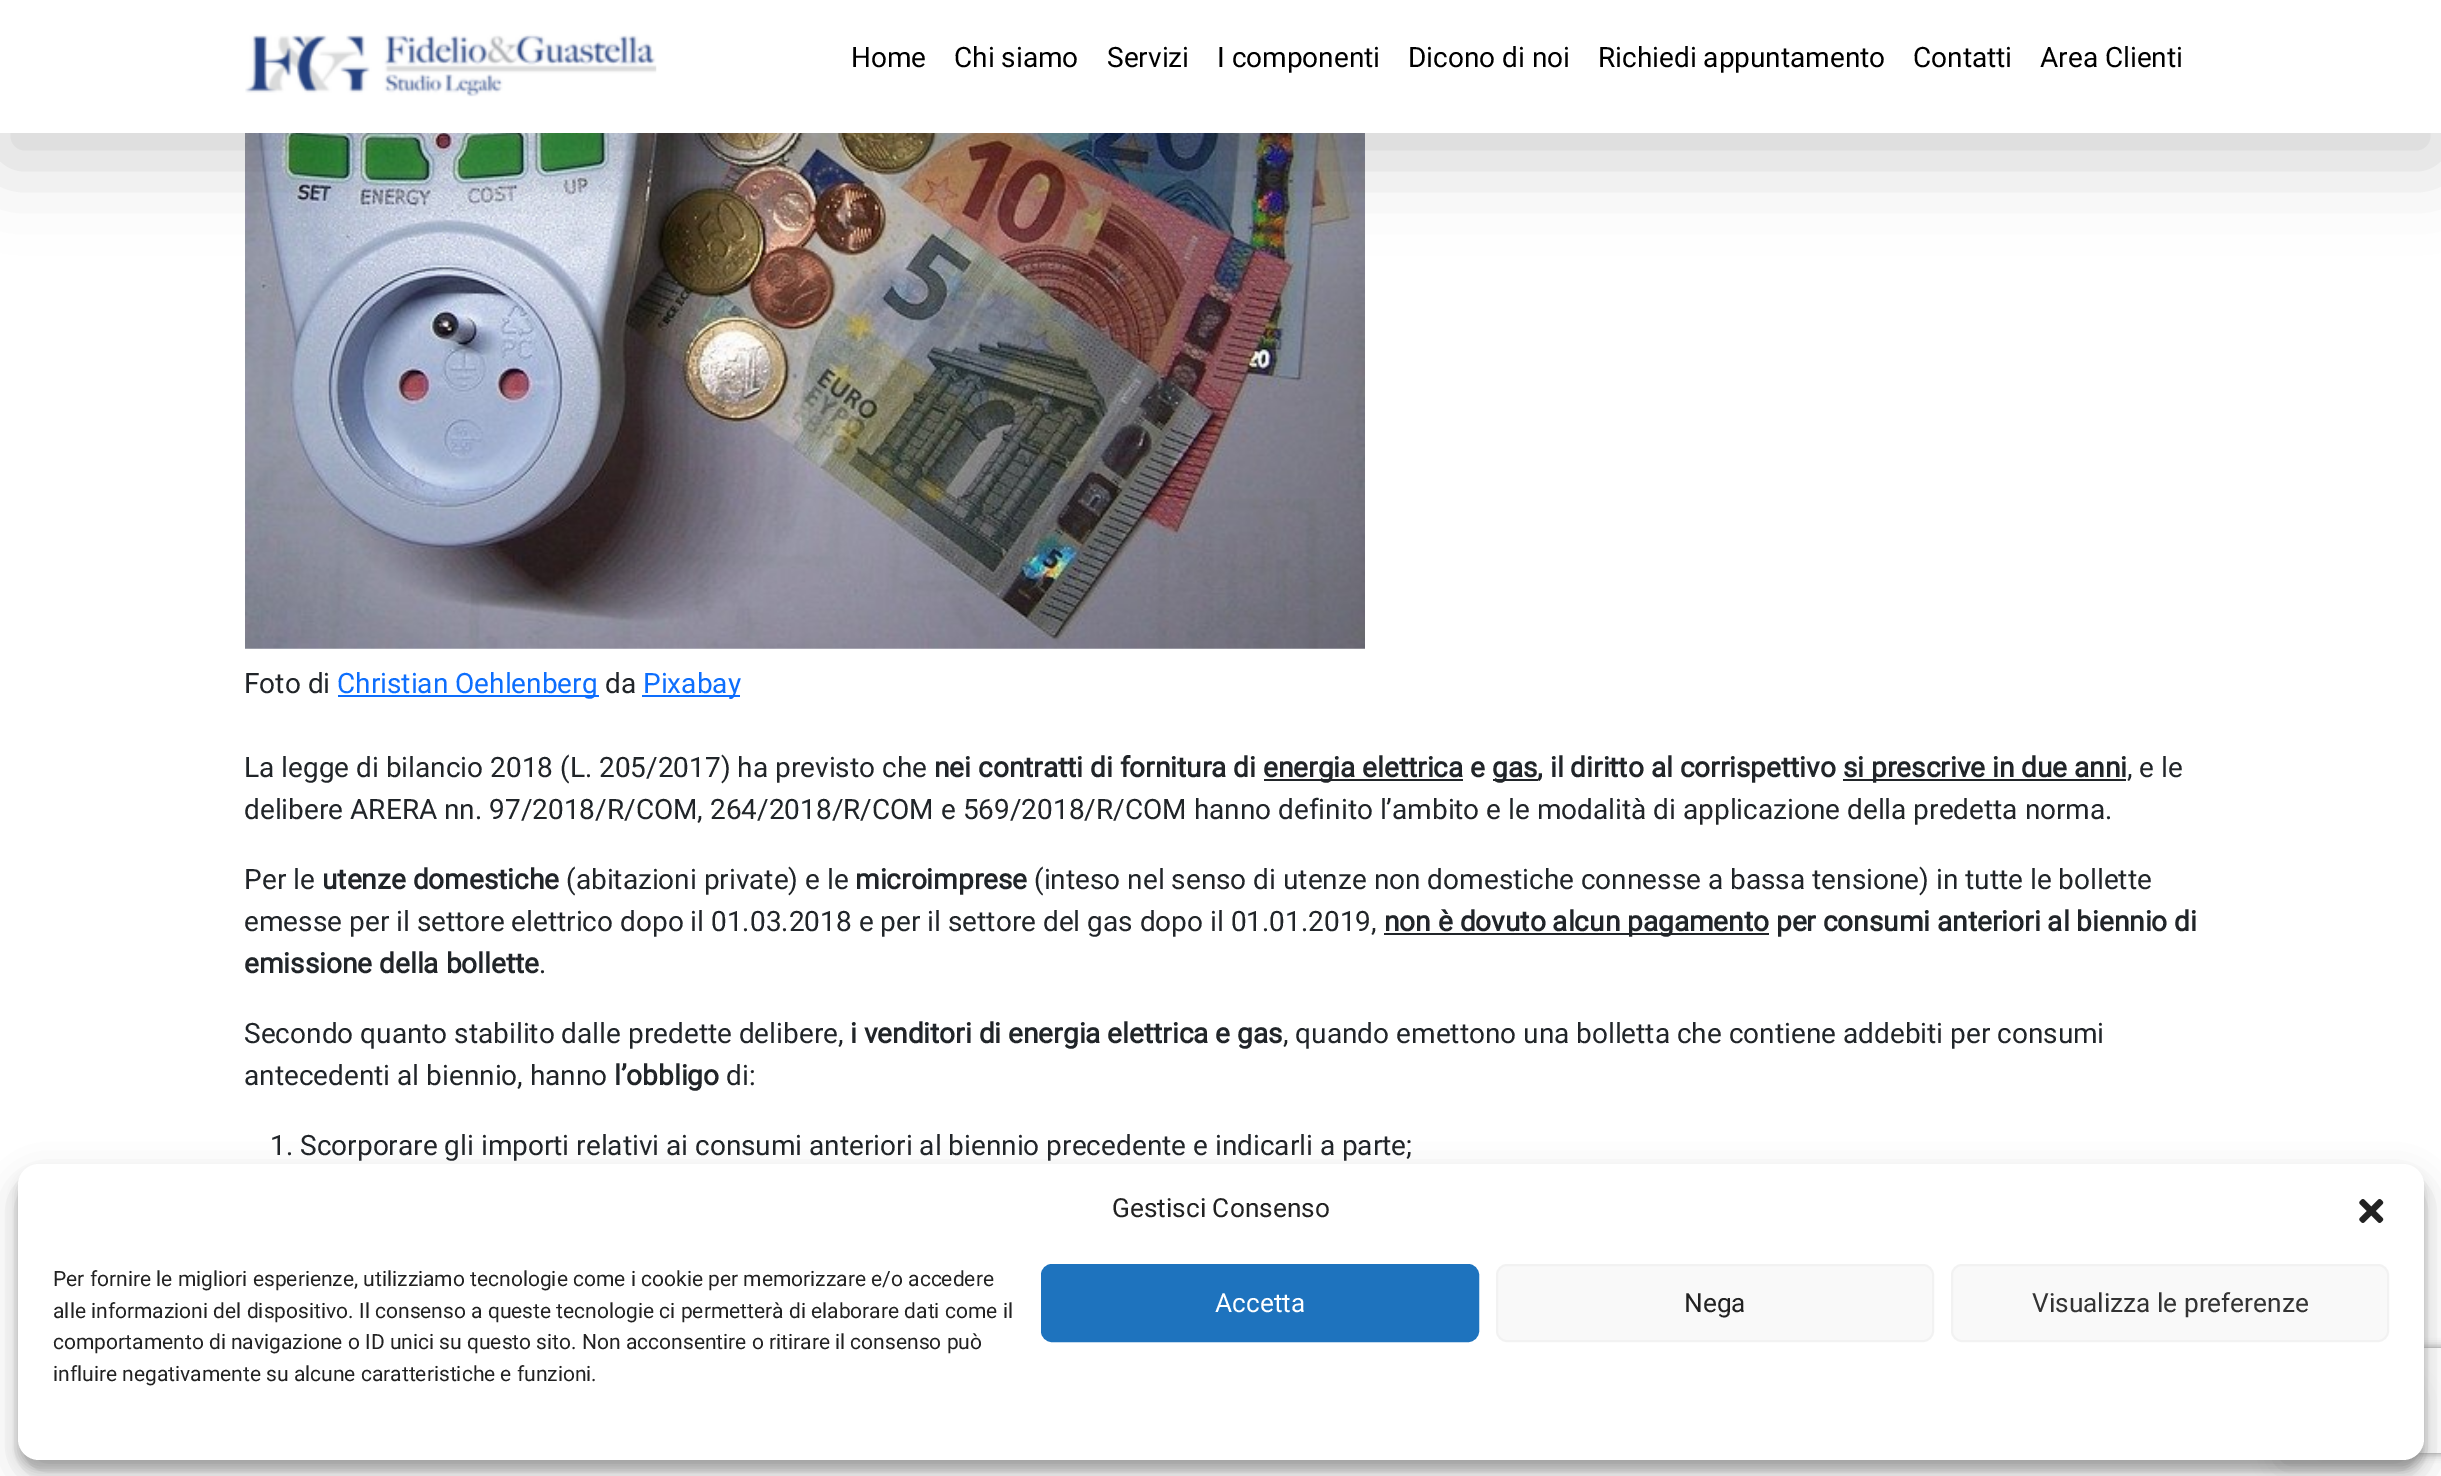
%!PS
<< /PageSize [2441 1476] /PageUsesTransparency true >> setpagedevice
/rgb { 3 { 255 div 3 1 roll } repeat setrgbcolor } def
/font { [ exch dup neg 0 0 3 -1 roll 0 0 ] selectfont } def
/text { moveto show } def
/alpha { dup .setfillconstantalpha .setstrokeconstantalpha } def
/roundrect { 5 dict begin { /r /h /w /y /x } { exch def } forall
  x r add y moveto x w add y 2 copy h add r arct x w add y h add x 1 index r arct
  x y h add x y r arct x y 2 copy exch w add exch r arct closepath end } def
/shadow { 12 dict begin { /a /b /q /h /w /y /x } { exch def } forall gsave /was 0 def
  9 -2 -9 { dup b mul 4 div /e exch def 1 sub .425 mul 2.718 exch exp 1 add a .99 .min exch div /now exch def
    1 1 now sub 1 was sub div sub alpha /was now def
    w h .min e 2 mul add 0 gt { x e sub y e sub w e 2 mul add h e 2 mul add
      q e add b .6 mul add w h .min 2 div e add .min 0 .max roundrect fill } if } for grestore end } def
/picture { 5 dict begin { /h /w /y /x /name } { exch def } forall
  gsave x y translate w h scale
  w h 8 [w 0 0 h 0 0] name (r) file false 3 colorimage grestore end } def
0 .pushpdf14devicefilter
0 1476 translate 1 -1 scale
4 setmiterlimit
255 255 255 rgb
0 0 2441 1476 rectfill
(img_02.rgb) 245 133 1120 516 picture
0 0 0 rgb
0 28 2441 133 0 42 0.18 shadow
255 255 255 rgb
0 0 2441 133 rectfill
(img_01.rgb) 245 34 412 63 picture
13 110 253 rgb
338 695 261 2 rectfill
642 695 98 2 rectfill
33 37 41 rgb
1264 779 199 2 rectfill
1493 779 45 2 rectfill
1843 779 283 2 rectfill
1384 933 385 2 rectfill
0 0 0 rgb
2280 1391 133 72 5 14 0.15 shadow
18 1174 2406 296 21 5 0.23 shadow
18 1181 2406 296 21 17.5 0.19 shadow
gsave
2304 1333 moveto 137 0 rlineto 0 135 rlineto -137 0 rlineto closepath 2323 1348 moveto 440 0 rlineto 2 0 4 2 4 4 rcurveto 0 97 rlineto 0 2 -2 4 -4 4 rcurveto -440 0 rlineto -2 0 -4 -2 -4 -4 rcurveto 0 -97 rlineto 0 -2 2 -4 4 -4 rcurveto closepath eoclip newpath
128 128 128 rgb
2319 1348 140 105 4 4.5 1 shadow
grestore
255 255 255 rgb
18 1164 2406 296 21 roundrect fill
(img_03.rgb) 2359 1199 25 24 picture
30 115 190 rgb
1042 1265 436 76 10 roundrect gsave fill grestore
2 setlinewidth
stroke
249 249 249 rgb
1497 1265 436 76 10 roundrect gsave fill grestore
242 242 242 rgb
stroke
249 249 249 rgb
1952 1265 436 76 10 roundrect gsave fill grestore
242 242 242 rgb
stroke
/Roboto-Regular 28 font
0 0 0 rgb
(Home) 851 67 text
(Chi siamo) 954 67 text
(Servizi) 1107 67 text
(I componenti) 1217 67 text
(Dicono di noi) 1408 67 text
(Richiedi appuntamento) 1598 67 text
(Contatti) 1913 67 text
(Area Clienti) 2040 67 text
33 37 41 rgb
(Foto di) 244 693 text
13 110 253 rgb
(Christian Oehlenberg) 337 693 text
33 37 41 rgb
(da) 605 693 text
13 110 253 rgb
(Pixabay) 643 693 text
33 37 41 rgb
(La legge di bilancio 2018 \(L. 205/2017\) ha previsto che) 244 777 text
/Roboto-Bold 28 font
(nei contratti di fornitura di) 934 777 text
(energia elettrica e) 1263 777 text
(gas, il diritto al corrispettivo) 1492 777 text
(si prescrive in due anni) 1843 777 text
/Roboto-Regular 28 font
(, e le) 2127 777 text
(delibere ARERA nn. 97/2018/R/COM, 264/2018/R/COM e 569/2018/R/COM hanno definito l’ambito e le modalità di applicazione della predetta norma.) 244 819 text
(Per le) 244 889 text
/Roboto-Bold 28 font
(utenze domestiche) 322 889 text
/Roboto-Regular 28 font
(\(abitazioni private\) e le) 566 889 text
/Roboto-Bold 28 font
(microimprese) 855 889 text
/Roboto-Regular 28 font
(\(inteso nel senso di utenze non domestiche connesse a bassa tensione\) in tutte le bollette) 1034 889 text
(emesse per il settore elettrico dopo il 01.03.2018 e per il settore del gas dopo il 01.01.2019,) 244 931 text
/Roboto-Bold 28 font
(non è dovuto alcun pagamento per consumi anteriori al biennio di) 1384 931 text
(emissione della bollette) 244 973 text
/Roboto-Regular 28 font
(.) 539 973 text
(Secondo quanto stabilito dalle predette delibere,) 244 1043 text
/Roboto-Bold 28 font
(i venditori di energia elettrica e gas) 850 1043 text
/Roboto-Regular 28 font
(, quando emettono una bolletta che contiene addebiti per consumi) 1283 1043 text
(antecedenti al biennio, hanno) 244 1085 text
/Roboto-Bold 28 font
(l’obbligo) 614 1085 text
/Roboto-Regular 28 font
(di:) 726 1085 text
(1. Scorporare gli importi relativi ai consumi anteriori al biennio precedente e indicarli a parte;) 270 1155 text
/Roboto-Regular 26.25 font
34 34 34 rgb
(Gestisci Consenso) 1112 1217 text
/Roboto-Regular 21 font
(Per fornire le migliori esperienze, utilizziamo tecnologie come i cookie per memorizzare e/o accedere) 53 1286 text
(alle informazioni del dispositivo. Il consenso a queste tecnologie ci permetterà di elaborare dati come il) 53 1318 text
(comportamento di navigazione o ID unici su questo sito. Non acconsentire o ritirare il consenso può) 53 1349 text
(influire negativamente su alcune caratteristiche e funzioni.) 53 1381 text
/Roboto-Regular 26.25 font
255 255 255 rgb
(Accetta) 1215 1312 text
34 34 34 rgb
(Nega) 1684 1312 text
51 51 51 rgb
(Visualizza le preferenze) 2032 1312 text
.poppdf14devicefilter showpage
